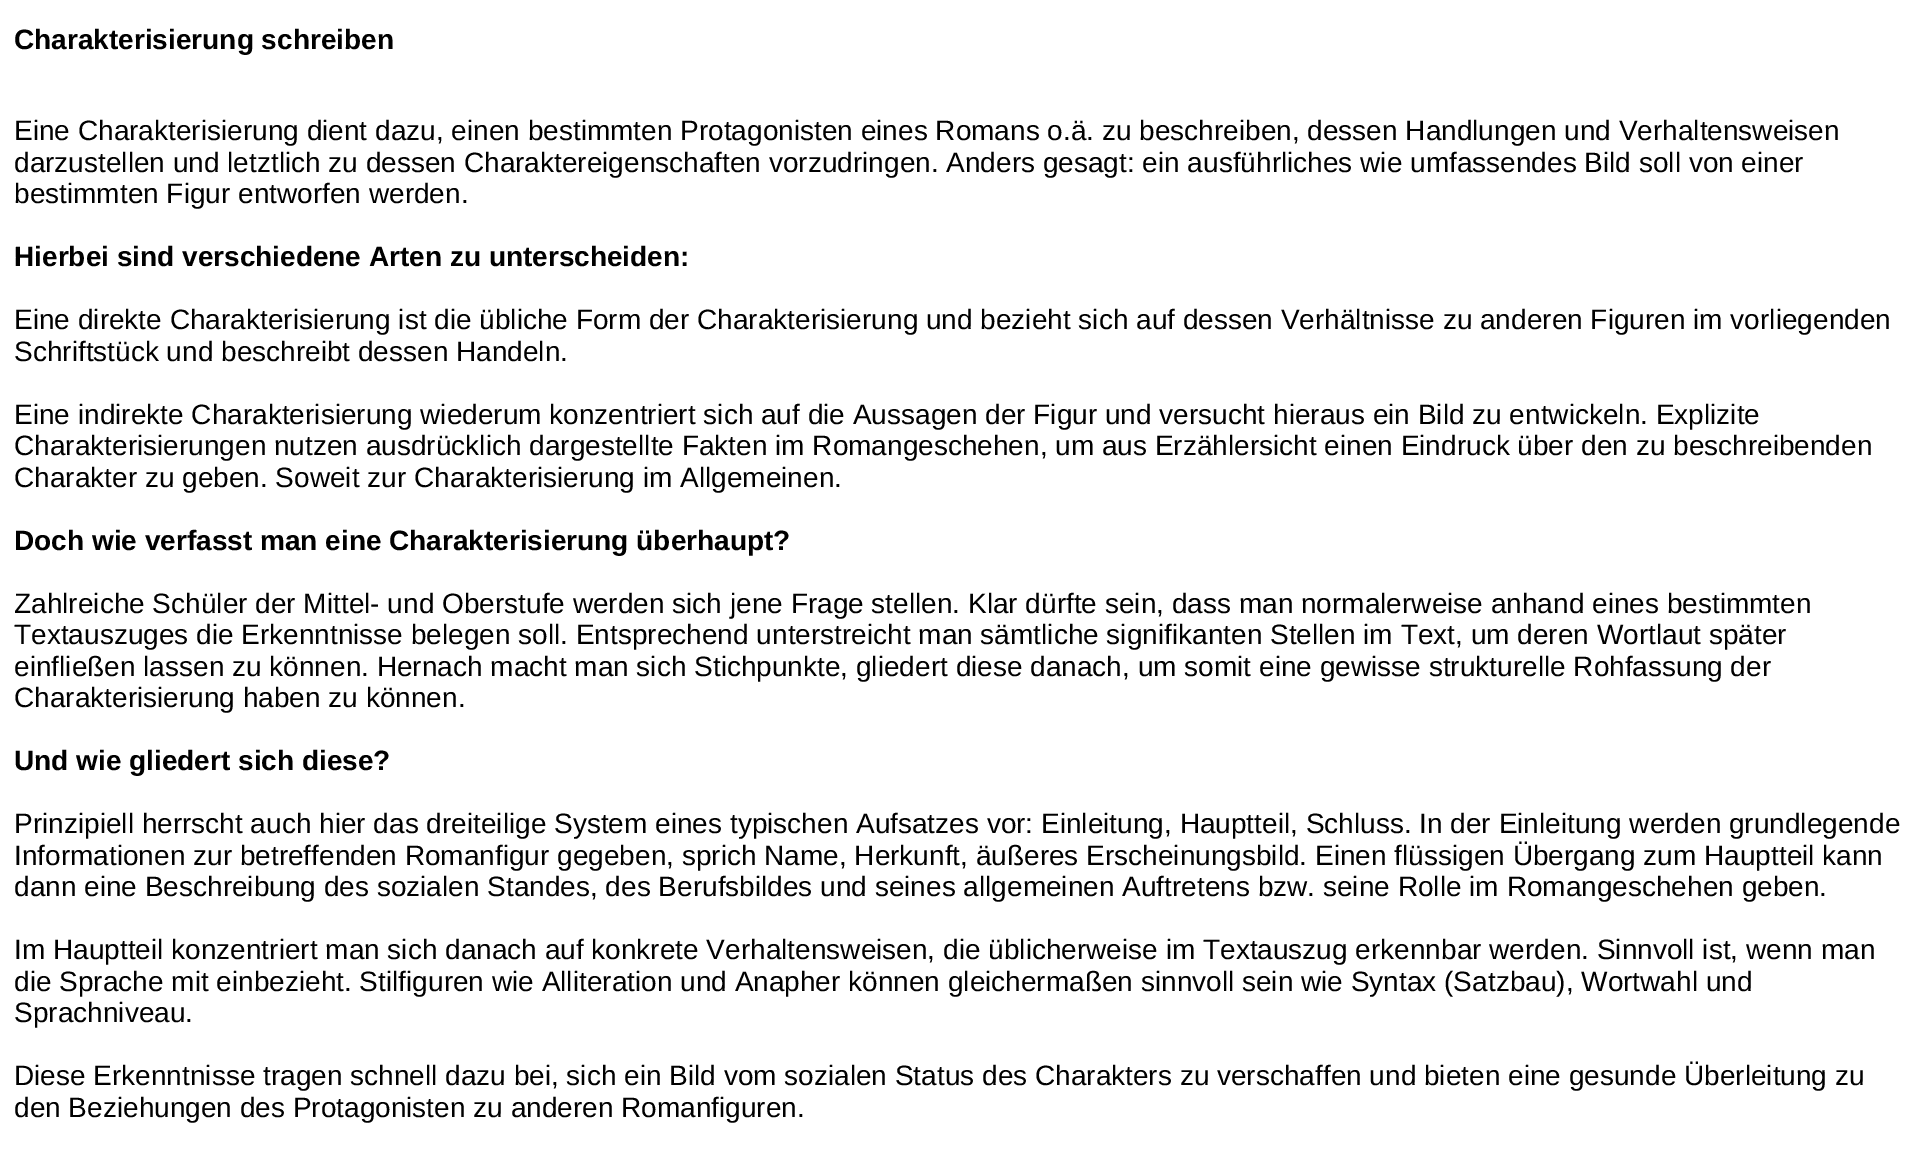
%!PS
<< /PageSize [1917 1161] >> setpagedevice
/rgb { 3 { 255 div 3 1 roll } repeat setrgbcolor } def
/font { [ exch dup neg 0 0 3 -1 roll 0 0 ] selectfont } def
/text { moveto show } def
0 1161 translate 1 -1 scale
4 setmiterlimit
255 255 255 rgb
0 0 1917 1161 rectfill
/LiberationSans-Bold 28 font
0 0 0 rgb
(Charakterisierung schreiben) 14 49 text
/LiberationSans-Regular 28 font
(Eine Charakterisierung dient dazu, einen bestimmten Protagonisten eines Romans o.ä. zu beschreiben, dessen Handlungen und Verhaltensweisen) 14 140 text
(darzustellen und letztlich zu dessen Charaktereigenschaften vorzudringen. Anders gesagt: ein ausführliches wie umfassendes Bild soll von einer) 14 172 text
(bestimmten Figur entworfen werden.) 14 203 text
/LiberationSans-Bold 28 font
(Hierbei sind verschiedene Arten zu unterscheiden:) 14 266 text
/LiberationSans-Regular 28 font
(Eine direkte Charakterisierung ist die übliche Form der Charakterisierung und bezieht sich auf dessen Verhältnisse zu anderen Figuren im vorliegenden) 14 329 text
(Schriftstück und beschreibt dessen Handeln.) 14 361 text
(Eine indirekte Charakterisierung wiederum konzentriert sich auf die Aussagen der Figur und versucht hieraus ein Bild zu entwickeln. Explizite) 14 424 text
(Charakterisierungen nutzen ausdrücklich dargestellte Fakten im Romangeschehen, um aus Erzählersicht einen Eindruck über den zu beschreibenden) 14 455 text
(Charakter zu geben. Soweit zur Charakterisierung im Allgemeinen.) 14 487 text
/LiberationSans-Bold 28 font
(Doch wie verfasst man eine Charakterisierung überhaupt?) 14 550 text
/LiberationSans-Regular 28 font
(Zahlreiche Schüler der Mittel- und Oberstufe werden sich jene Frage stellen. Klar dürfte sein, dass man normalerweise anhand eines bestimmten) 14 613 text
(Textauszuges die Erkenntnisse belegen soll. Entsprechend unterstreicht man sämtliche signifikanten Stellen im Text, um deren Wortlaut später) 14 644 text
(einfließen lassen zu können. Hernach macht man sich Stichpunkte, gliedert diese danach, um somit eine gewisse strukturelle Rohfassung der) 14 676 text
(Charakterisierung haben zu können.) 14 707 text
/LiberationSans-Bold 28 font
(Und wie gliedert sich diese?) 14 770 text
/LiberationSans-Regular 28 font
(Prinzipiell herrscht auch hier das dreiteilige System eines typischen Aufsatzes vor: Einleitung, Hauptteil, Schluss. In der Einleitung werden grundlegende) 14 833 text
(Informationen zur betreffenden Romanfigur gegeben, sprich Name, Herkunft, äußeres Erscheinungsbild. Einen flüssigen Übergang zum Hauptteil kann) 14 865 text
(dann eine Beschreibung des sozialen Standes, des Berufsbildes und seines allgemeinen Auftretens bzw. seine Rolle im Romangeschehen geben.) 14 896 text
(Im Hauptteil konzentriert man sich danach auf konkrete Verhaltensweisen, die üblicherweise im Textauszug erkennbar werden. Sinnvoll ist, wenn man) 14 959 text
(die Sprache mit einbezieht. Stilfiguren wie Alliteration und Anapher können gleichermaßen sinnvoll sein wie Syntax \(Satzbau\), Wortwahl und) 14 991 text
(Sprachniveau.) 14 1022 text
(Diese Erkenntnisse tragen schnell dazu bei, sich ein Bild vom sozialen Status des Charakters zu verschaffen und bieten eine gesunde Überleitung zu) 14 1085 text
(den Beziehungen des Protagonisten zu anderen Romanfiguren.) 14 1117 text
showpage
